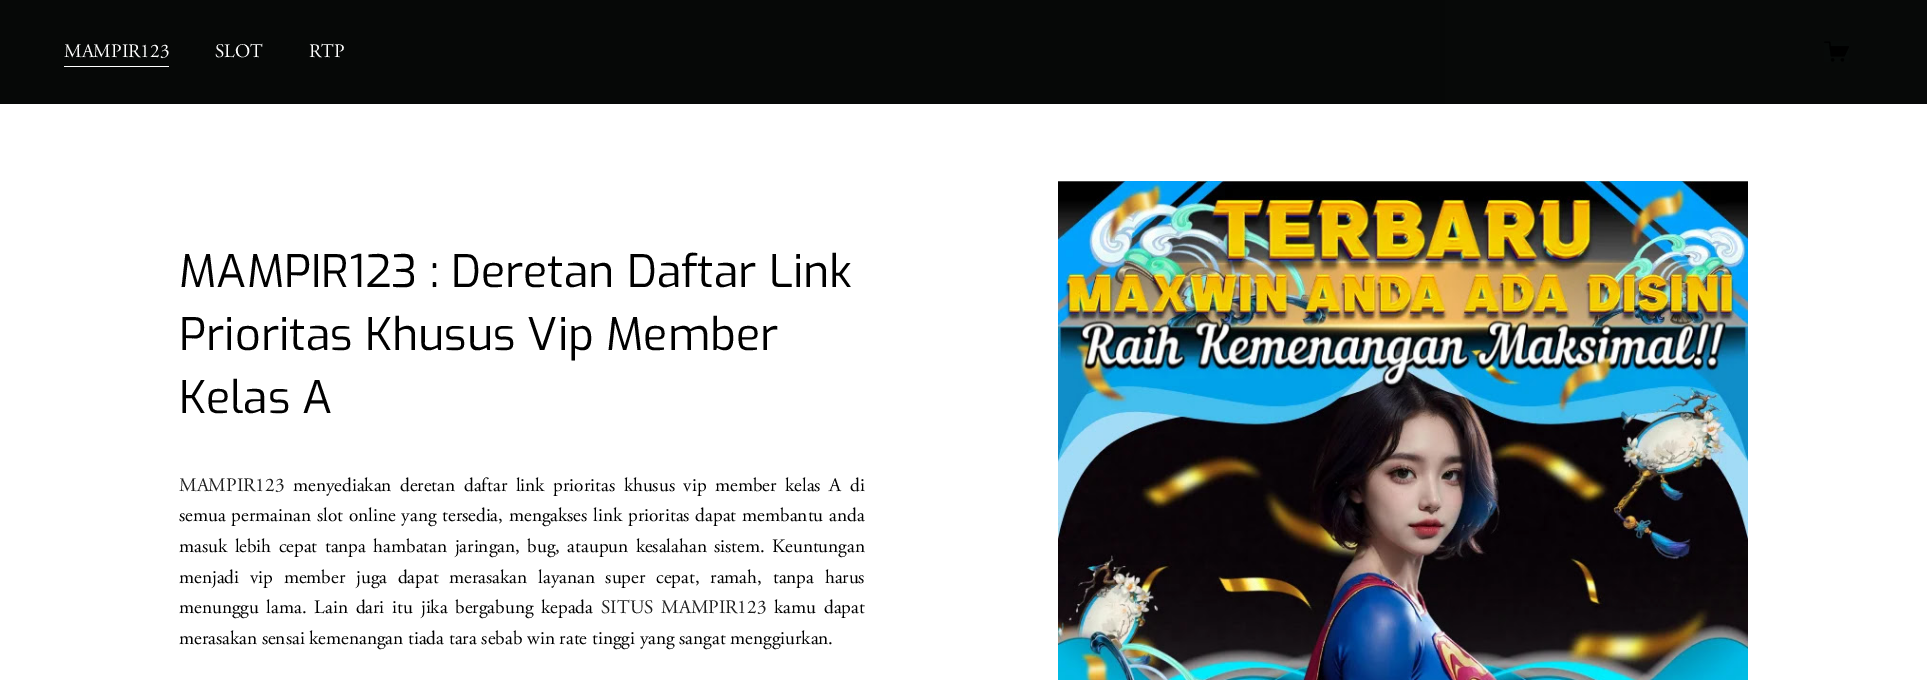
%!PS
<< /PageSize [1927 680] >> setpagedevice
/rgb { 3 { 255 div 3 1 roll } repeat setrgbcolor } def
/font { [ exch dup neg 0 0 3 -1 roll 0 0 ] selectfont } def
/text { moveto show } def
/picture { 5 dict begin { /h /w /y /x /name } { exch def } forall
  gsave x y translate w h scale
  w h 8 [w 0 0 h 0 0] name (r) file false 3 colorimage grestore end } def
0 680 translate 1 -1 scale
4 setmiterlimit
255 255 255 rgb
0 0 1927 680 rectfill
gsave 0 0 moveto 1927 0 rlineto 0 104 rlineto -1927 0 rlineto closepath clip newpath
<< /ShadingType 2 /ColorSpace /DeviceRGB /Coords [-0.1 54 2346 49] /Extend [true true] /Function << /FunctionType 3 /Domain [0 1] /Functions [<< /FunctionType 2 /Domain [0 1] /C0 [0.024 0.031 0.027] /C1 [0.024 0.031 0.027] /N 1 >> << /FunctionType 2 /Domain [0 1] /C0 [0.024 0.031 0.027] /C1 [0.031 0.043 0.039] /N 1 >>] /Bounds [0.29] /Encode [0 1 0 1] >> >> shfill grestore
64 66 105 1 rectfill
(img_01.rgb) 1824 41 25 21 picture
(img_02.rgb) 1058 181 690 499 picture
/AdobeGaramond-Regular 19.2 font
(MAMPIR123) 64 57 text
(SLOT) 215 57 text
(RTP) 309 57 text
/Exo-Regular 44.75 font
0 0 0 rgb
(MAMPIR123 : Deretan Daftar Link) 179 287 text
(Prioritas Khusus Vip Member) 179 350 text
(Kelas A) 179 413 text
/AdobeGaramond-Regular 19.2 font
31 31 31 rgb
(MAMPIR123) 179 491 text
0 0 0 rgb
293 491 moveto 3.9 0 32 (menyediakan deretan daftar link prioritas khusus vip member kelas A di) widthshow
179 521 moveto 1.1 0 32 (semua permainan slot online yang tersedia, mengakses link prioritas dapat membantu anda) widthshow
179 552 moveto 2.6 0 32 (masuk lebih cepat tanpa hambatan jaringan, bug, ataupun kesalahan sistem. Keuntungan) widthshow
179 583 moveto 6 0 32 (menjadi vip member juga dapat merasakan layanan super cepat, ramah, tanpa harus) widthshow
179 613 moveto 3 0 32 (menunggu lama. Lain dari itu jika bergabung kepada) widthshow
31 31 31 rgb
601 613 moveto 3 0 32 (SITUS MAMPIR123) widthshow
0 0 0 rgb
774 613 moveto 3 0 32 (kamu dapat) widthshow
(merasakan sensai kemenangan tiada tara sebab win rate tinggi yang sangat menggiurkan.) 179 644 text
showpage
